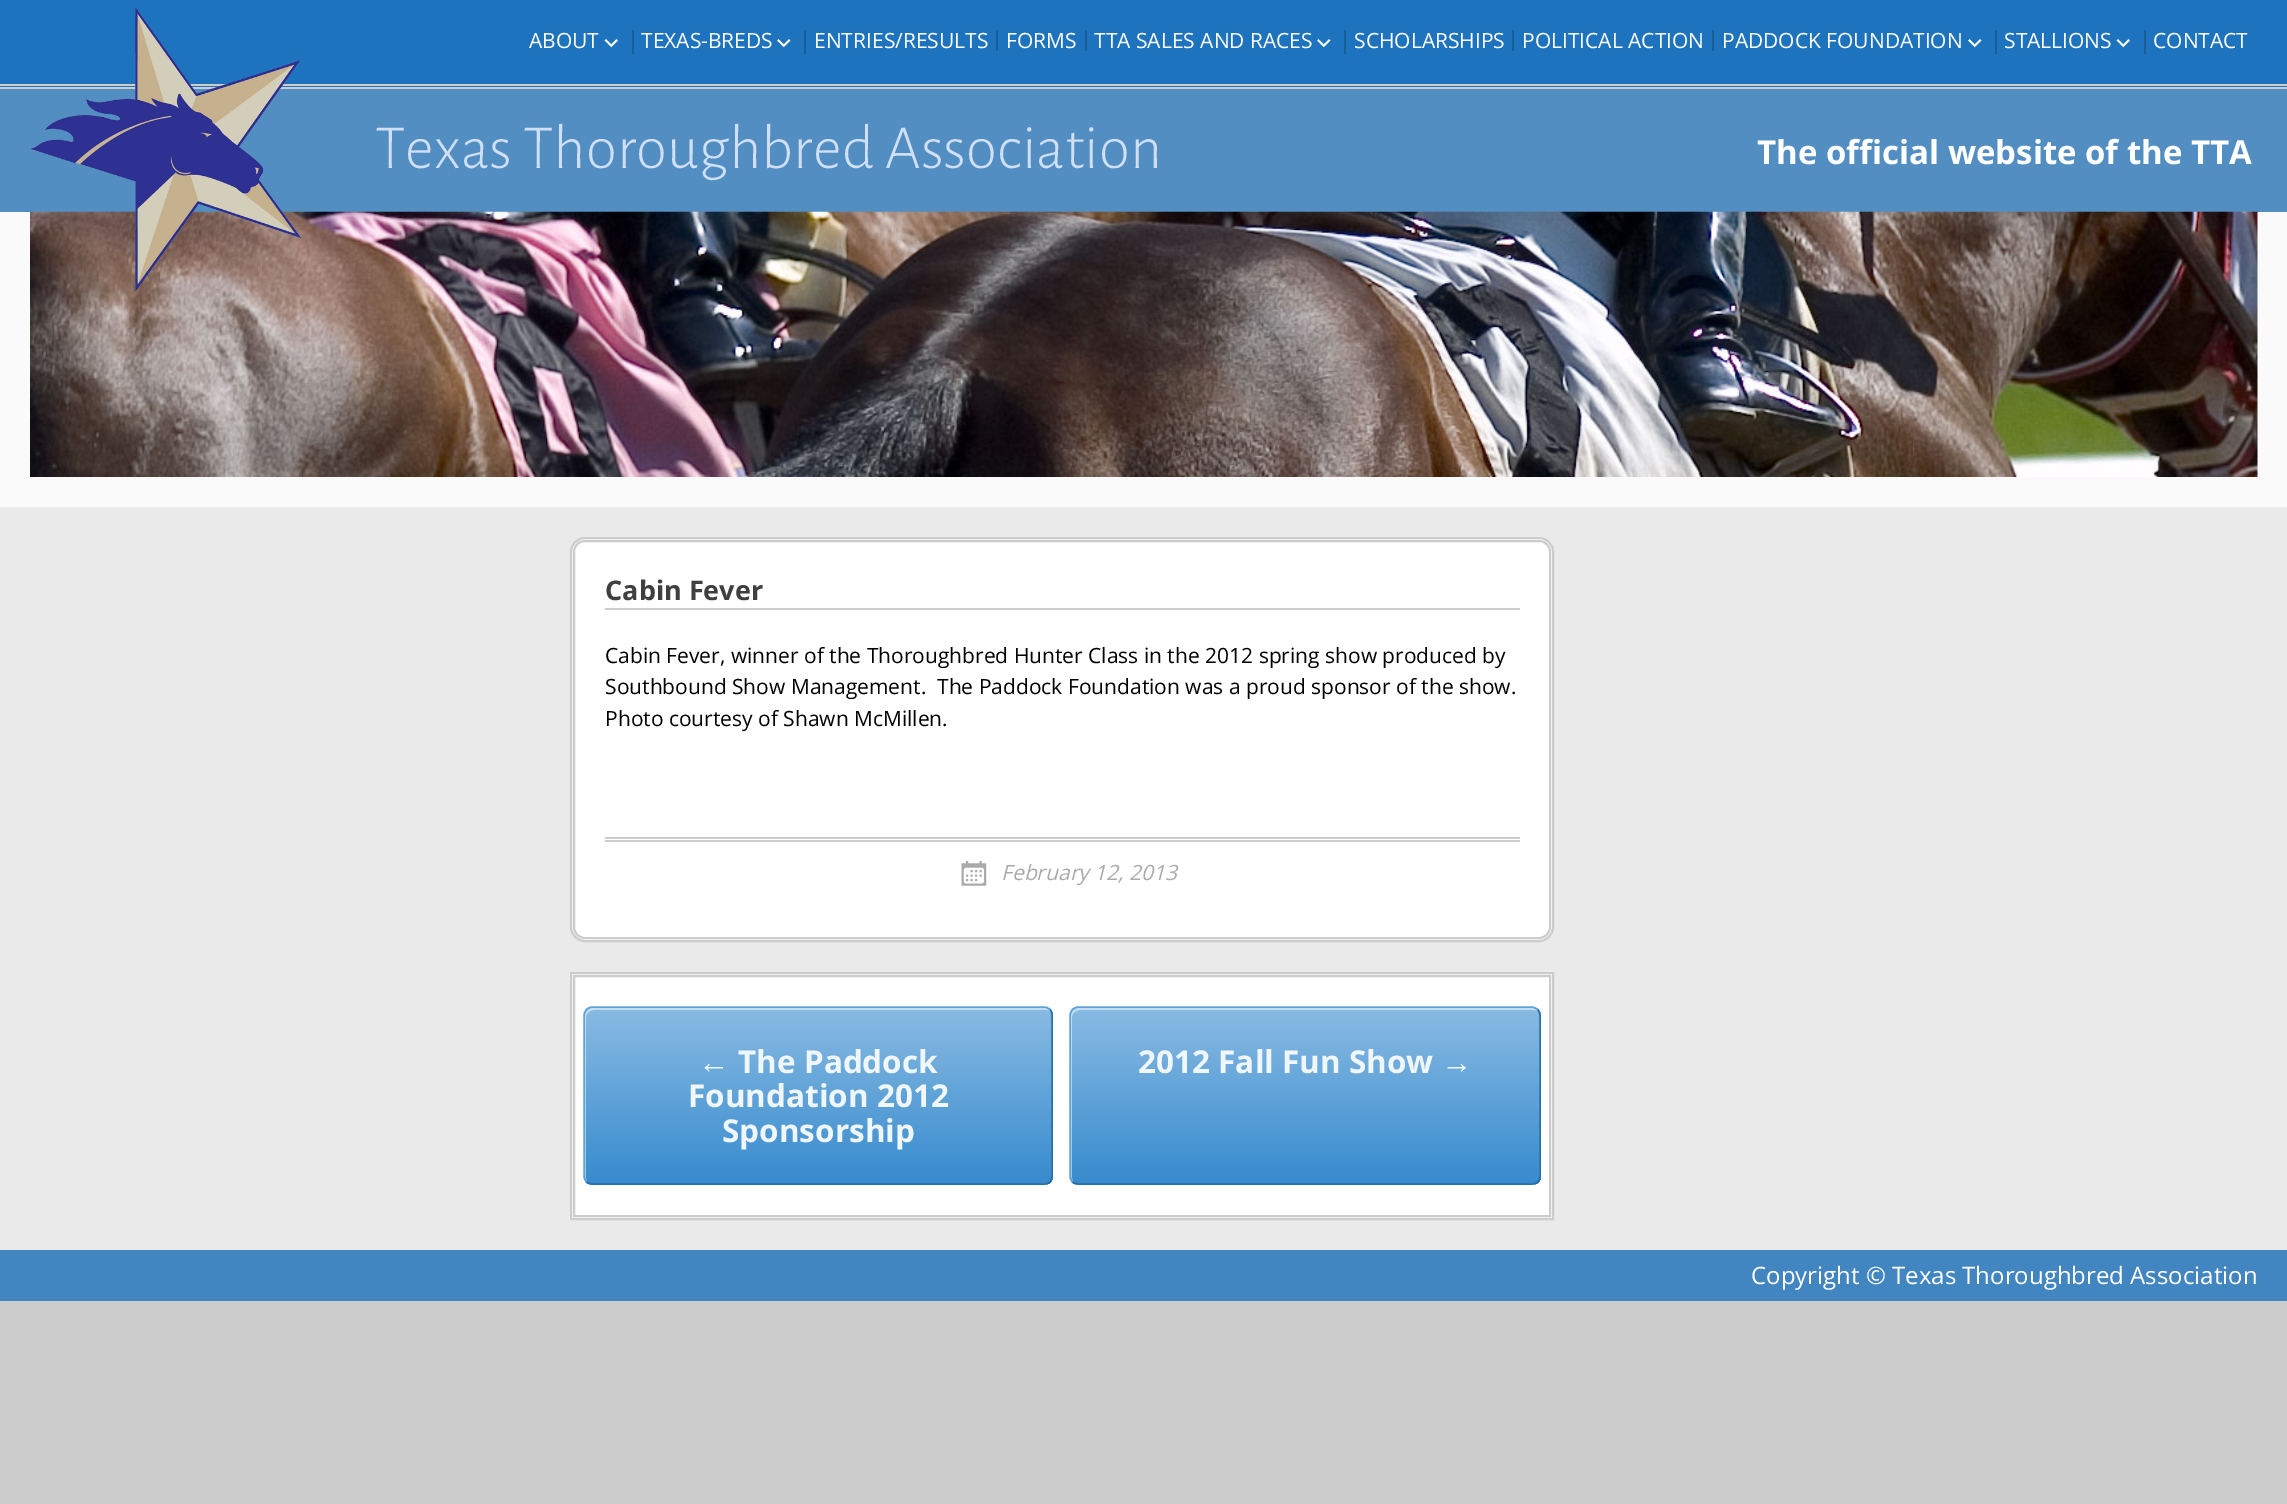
%!PS
<< /PageSize [2287 1504] /PageUsesTransparency true >> setpagedevice
/rgb { 3 { 255 div 3 1 roll } repeat setrgbcolor } def
/font { [ exch dup neg 0 0 3 -1 roll 0 0 ] selectfont } def
/text { moveto show } def
/alpha { dup .setfillconstantalpha .setstrokeconstantalpha } def
/roundrect { 5 dict begin { /r /h /w /y /x } { exch def } forall
  x r add y moveto x w add y 2 copy h add r arct x w add y h add x 1 index r arct
  x y h add x y r arct x y 2 copy exch w add exch r arct closepath end } def
/picture { 5 dict begin { /h /w /y /x /name } { exch def } forall
  gsave x y translate w h scale
  w h 8 [w 0 0 h 0 0] name (r) file false 3 colorimage grestore end } def
0 .pushpdf14devicefilter
0 1504 translate 1 -1 scale
4 setmiterlimit
204 204 204 rgb
0 0 2287 1504 rectfill
30 115 190 rgb
0 0 2287 87 rectfill
204 204 204 rgb
0 84 2287 2 rectfill
82 142 194 rgb
0 89 2287 123 rectfill
250 250 250 rgb
0 212 2287 295 rectfill
(img_04.rgb) 30 211 2228 266 picture
(img_01.rgb) 30 6 272 286 picture
(img_02.rgb) 604 39 14 9 picture
24 92 152 rgb
632 30 2 24 rectfill
(img_03.rgb) 777 39 14 9 picture
804 30 2 24 rectfill
996 30 2 21 rectfill
1085 30 2 21 rectfill
(img_03.rgb) 1317 39 14 9 picture
1344 30 2 24 rectfill
1512 30 2 21 rectfill
1712 30 2 21 rectfill
(img_03.rgb) 1968 39 14 9 picture
1995 30 2 24 rectfill
(img_02.rgb) 2116 39 14 9 picture
2144 30 2 24 rectfill
234 234 234 rgb
0 507 2287 743 rectfill
255 255 255 rgb
571 538 982 403 14 roundrect gsave fill grestore
204 204 204 rgb
2 setlinewidth
stroke
574 541 976 397 11 roundrect stroke
605 608 915 2 rectfill
605 837 915 2 rectfill
605 840 915 2 rectfill
(img_05.rgb) 961 861 26 25 picture
255 255 255 rgb
571 973 moveto 982 0 rlineto 0 246 rlineto -982 0 rlineto closepath gsave fill grestore
204 204 204 rgb
stroke
574 976 976 240 rectstroke
gsave
584 1007 469 178 9 roundrect clip newpath
gsave 584 1008 moveto 469 0 rlineto 0 176 rlineto -469 0 rlineto closepath clip newpath
<< /ShadingType 2 /ColorSpace /DeviceRGB /Coords [818 1008 818 1184] /Extend [true true] /Function << /FunctionType 3 /Domain [0 1] /Functions [<< /FunctionType 2 /Domain [0 1] /C0 [0.537 0.733 0.886] /C1 [0.376 0.639 0.847] /N 1 >> << /FunctionType 2 /Domain [0 1] /C0 [0.376 0.639 0.847] /C1 [0.216 0.545 0.808] /N 1 >>] /Bounds [0.5] /Encode [0 1 0 1] >> >> shfill grestore
gsave 584 1184 moveto 469 0 rlineto 0 1 rlineto -469 0 rlineto closepath clip newpath
<< /ShadingType 2 /ColorSpace /DeviceRGB /Coords [818 1184 818 1359] /Extend [true true] /Function << /FunctionType 3 /Domain [0 1] /Functions [<< /FunctionType 2 /Domain [0 1] /C0 [0.537 0.733 0.886] /C1 [0.376 0.639 0.847] /N 1 >> << /FunctionType 2 /Domain [0 1] /C0 [0.376 0.639 0.847] /C1 [0.216 0.545 0.808] /N 1 >>] /Bounds [0.5] /Encode [0 1 0 1] >> >> shfill grestore
grestore
0.5 alpha
255 255 255 rgb
594 1010 moveto 452 0 rlineto 2 0 4 1 5 2 rcurveto -2 -2 -4 -4 -7 -4 rcurveto -451 0 rlineto -4 0 -8 4 -8 8 rcurveto 0 160 rlineto 0 2 1 4 2 5 rcurveto -1 -3 rlineto 0 -161 rlineto 0 -4 4 -7 8 -7 rcurveto closepath fill
1 alpha
41 112 169 rgb
1.5 setlinewidth
1050 1009.5 moveto 1.5 1.5 2 4 2 6 rcurveto 0 160.5 rlineto 0 2 -0.5 4.5 -2 6 rcurveto -1.5 1.5 -4 2 -6 2 rcurveto -451.5 0 rlineto -2 0 -4.5 -0.5 -6 -2 rcurveto stroke
96 163 216 rgb
586.5 1182 moveto -1.5 -1.5 -2.5 -4 -2.5 -6 rcurveto 0 -160.5 rlineto 0 -2 1 -4.5 2.5 -6 rcurveto 1.5 -1.5 4 -2.5 6 -2.5 rcurveto 451.5 0 rlineto 2 0 4.5 1 6 2.5 rcurveto stroke
gsave
1070 1007 471 178 9 roundrect clip newpath
gsave 1070 1008 moveto 471 0 rlineto 0 176 rlineto -471 0 rlineto closepath clip newpath
<< /ShadingType 2 /ColorSpace /DeviceRGB /Coords [1305 1008 1305 1184] /Extend [true true] /Function << /FunctionType 3 /Domain [0 1] /Functions [<< /FunctionType 2 /Domain [0 1] /C0 [0.537 0.733 0.886] /C1 [0.376 0.639 0.847] /N 1 >> << /FunctionType 2 /Domain [0 1] /C0 [0.376 0.639 0.847] /C1 [0.216 0.545 0.808] /N 1 >>] /Bounds [0.5] /Encode [0 1 0 1] >> >> shfill grestore
gsave 1070 1184 moveto 471 0 rlineto 0 1 rlineto -471 0 rlineto closepath clip newpath
<< /ShadingType 2 /ColorSpace /DeviceRGB /Coords [1305 1184 1305 1359] /Extend [true true] /Function << /FunctionType 3 /Domain [0 1] /Functions [<< /FunctionType 2 /Domain [0 1] /C0 [0.537 0.733 0.886] /C1 [0.376 0.639 0.847] /N 1 >> << /FunctionType 2 /Domain [0 1] /C0 [0.376 0.639 0.847] /C1 [0.216 0.545 0.808] /N 1 >>] /Bounds [0.5] /Encode [0 1 0 1] >> >> shfill grestore
grestore
0.5 alpha
255 255 255 rgb
1080 1010 moveto 453 0 rlineto 2 0 4 1 5 2 rcurveto -2 -2 -4 -4 -7 -4 rcurveto -452 0 rlineto -4 0 -8 4 -8 8 rcurveto 0 160 rlineto 0 2 1 4 2 5 rcurveto -1 -3 rlineto 0 -161 rlineto 0 -4 4 -7 8 -7 rcurveto closepath fill
1 alpha
41 112 169 rgb
1537.5 1009.5 moveto 1.5 1.5 2.5 4 2.5 6 rcurveto 0 160.5 rlineto 0 2 -1 4.5 -2.5 6 rcurveto -1.5 1.5 -4 2 -6 2 rcurveto -453 0 rlineto -2 0 -4.5 -0.5 -6 -2 rcurveto stroke
96 163 216 rgb
1072.5 1182 moveto -1.5 -1.5 -2.5 -4 -2.5 -6 rcurveto 0 -160.5 rlineto 0 -2 1 -4.5 2.5 -6 rcurveto 1.5 -1.5 4 -2.5 6 -2.5 rcurveto 453 0 rlineto 2 0 4.5 1 6 2.5 rcurveto stroke
65 133 193 rgb
0 1250 2287 51 rectfill
/OpenSans-Regular 21 font
255 255 255 rgb
(ABOUT) 529 48 text
(TEXAS-BREDS) 641 48 text
(ENTRIES/RESULTS) 814 48 text
(FORMS) 1006 48 text
(TTA SALES AND RACES) 1094 48 text
(SCHOLARSHIPS) 1354 48 text
(POLITICAL ACTION) 1522 48 text
(PADDOCK FOUNDATION) 1722 48 text
(STALLIONS) 2004 48 text
(CONTACT) 2153 48 text
/AlegreyaSans-Light 63 font
208 223 244 rgb
(Texas Thoroughbred Association) 375 168 text
/OpenSans-Bold 33 font
255 255 255 rgb
(The official website of the TTA) 1757 164 text
/OpenSans-Bold 27 font
63 63 63 rgb
(Cabin Fever) 605 600 text
/OpenSans-Regular 21 font
0 0 0 rgb
(Cabin Fever, winner of the Thoroughbred Hunter Class in the 2012 spring show produced by) 605 663 text
(Southbound Show Management.  The Paddock Foundation was a proud sponsor of the show.) 605 694 text
(Photo courtesy of Shawn McMillen.) 605 726 text
/OpenSans-Italic 21 font
170 170 170 rgb
(February 12, 2013) 1001 880 text
/LiberationSans-Bold 31.5 font
240 247 251 rgb
(←) 698 1073 text
/OpenSans-Bold 31.5 font
(The Paddock) 738 1073 text
(Foundation 2012) 688 1107 text
(Sponsorship) 722 1142 text
(2012 Fall Fun Show) 1138 1073 text
/LiberationSans-Bold 31.5 font
(→) 1441 1073 text
/OpenSans-Regular 24 font
255 255 255 rgb
(Copyright) 1751 1284 text
/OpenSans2-Regular 24 font
(©) 1866 1284 text
/OpenSans-Regular 24 font
(Texas Thoroughbred Association) 1892 1284 text
.poppdf14devicefilter showpage
